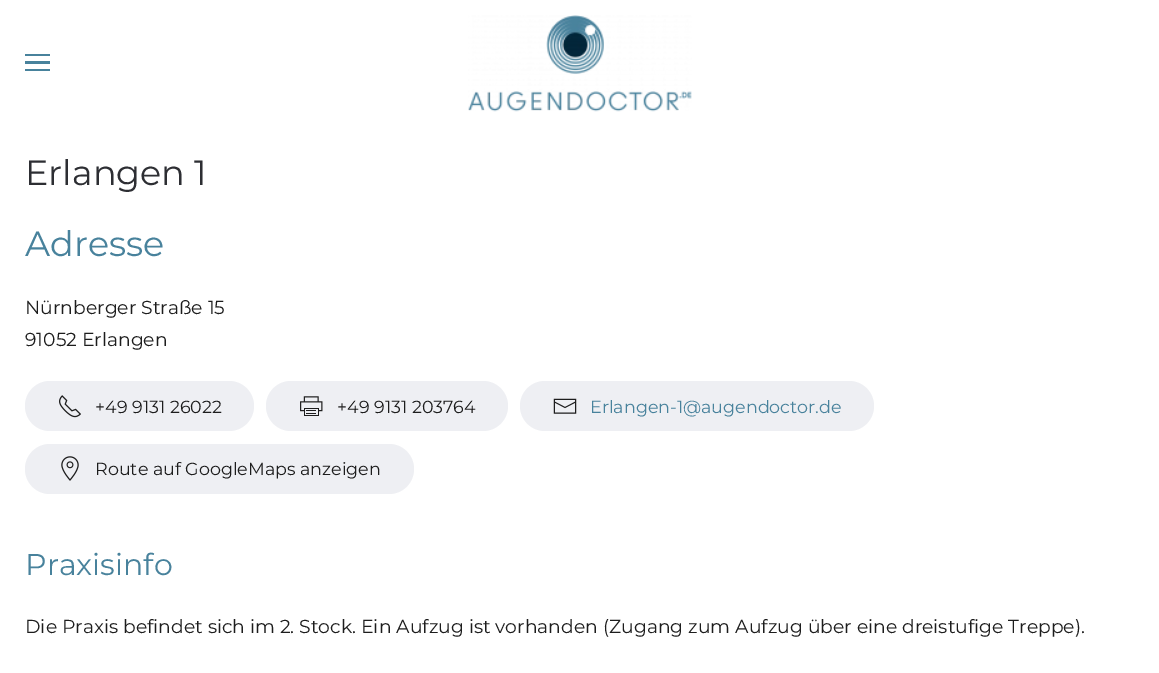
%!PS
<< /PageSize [1159 673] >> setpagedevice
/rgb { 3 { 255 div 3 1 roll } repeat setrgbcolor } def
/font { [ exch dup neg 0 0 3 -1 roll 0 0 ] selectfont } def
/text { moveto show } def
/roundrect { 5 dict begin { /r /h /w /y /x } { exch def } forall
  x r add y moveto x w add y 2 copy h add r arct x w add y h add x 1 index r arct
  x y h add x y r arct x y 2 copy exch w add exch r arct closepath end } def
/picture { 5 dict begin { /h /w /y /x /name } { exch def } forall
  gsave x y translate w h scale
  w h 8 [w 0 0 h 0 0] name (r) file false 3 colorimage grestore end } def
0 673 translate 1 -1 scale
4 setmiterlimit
255 255 255 rgb
0 0 1159 673 rectfill
72 130 156 rgb
25 54 25 2 rectfill
25 61 25 3 rectfill
25 69 25 2 rectfill
(img_01.rgb) 468 15 224 97 picture
238 239 243 rgb
25 381 229 50 25 roundrect fill
(img_02.rgb) 59 395 22 23 picture
266 381 242 50 25 roundrect fill
(img_03.rgb) 300 396 23 20 picture
520 381 354 50 25 roundrect fill
(img_04.rgb) 553 398 24 16 picture
25 444 389 50 25 roundrect fill
(img_05.rgb) 61 456 18 25 picture
/Montserrat-Regular 35 font
45 46 51 rgb
(Erlangen 1) 25 185 text
72 130 156 rgb
(Adresse) 25 256 text
/Montserrat-Regular 18.75 font
29 29 29 rgb
(Nürnberger Straße 15) 25 314 text
(91052 Erlangen) 25 346 text
/Montserrat-Regular 17.5 font
(+49 9131 26022) 95 413 text
(+49 9131 203764) 337 413 text
72 130 156 rgb
(Erlangen-1@augendoctor.de) 590 413 text
29 29 29 rgb
(Route auf GoogleMaps anzeigen) 95 475 text
/Montserrat-Regular 30 font
72 130 156 rgb
(Praxisinfo) 25 575 text
/Montserrat-Regular 18.75 font
29 29 29 rgb
(Die Praxis befindet sich im 2. Stock. Ein Aufzug ist vorhanden \(Zugang zum Aufzug über eine dreistufige Treppe\).) 25 633 text
showpage
